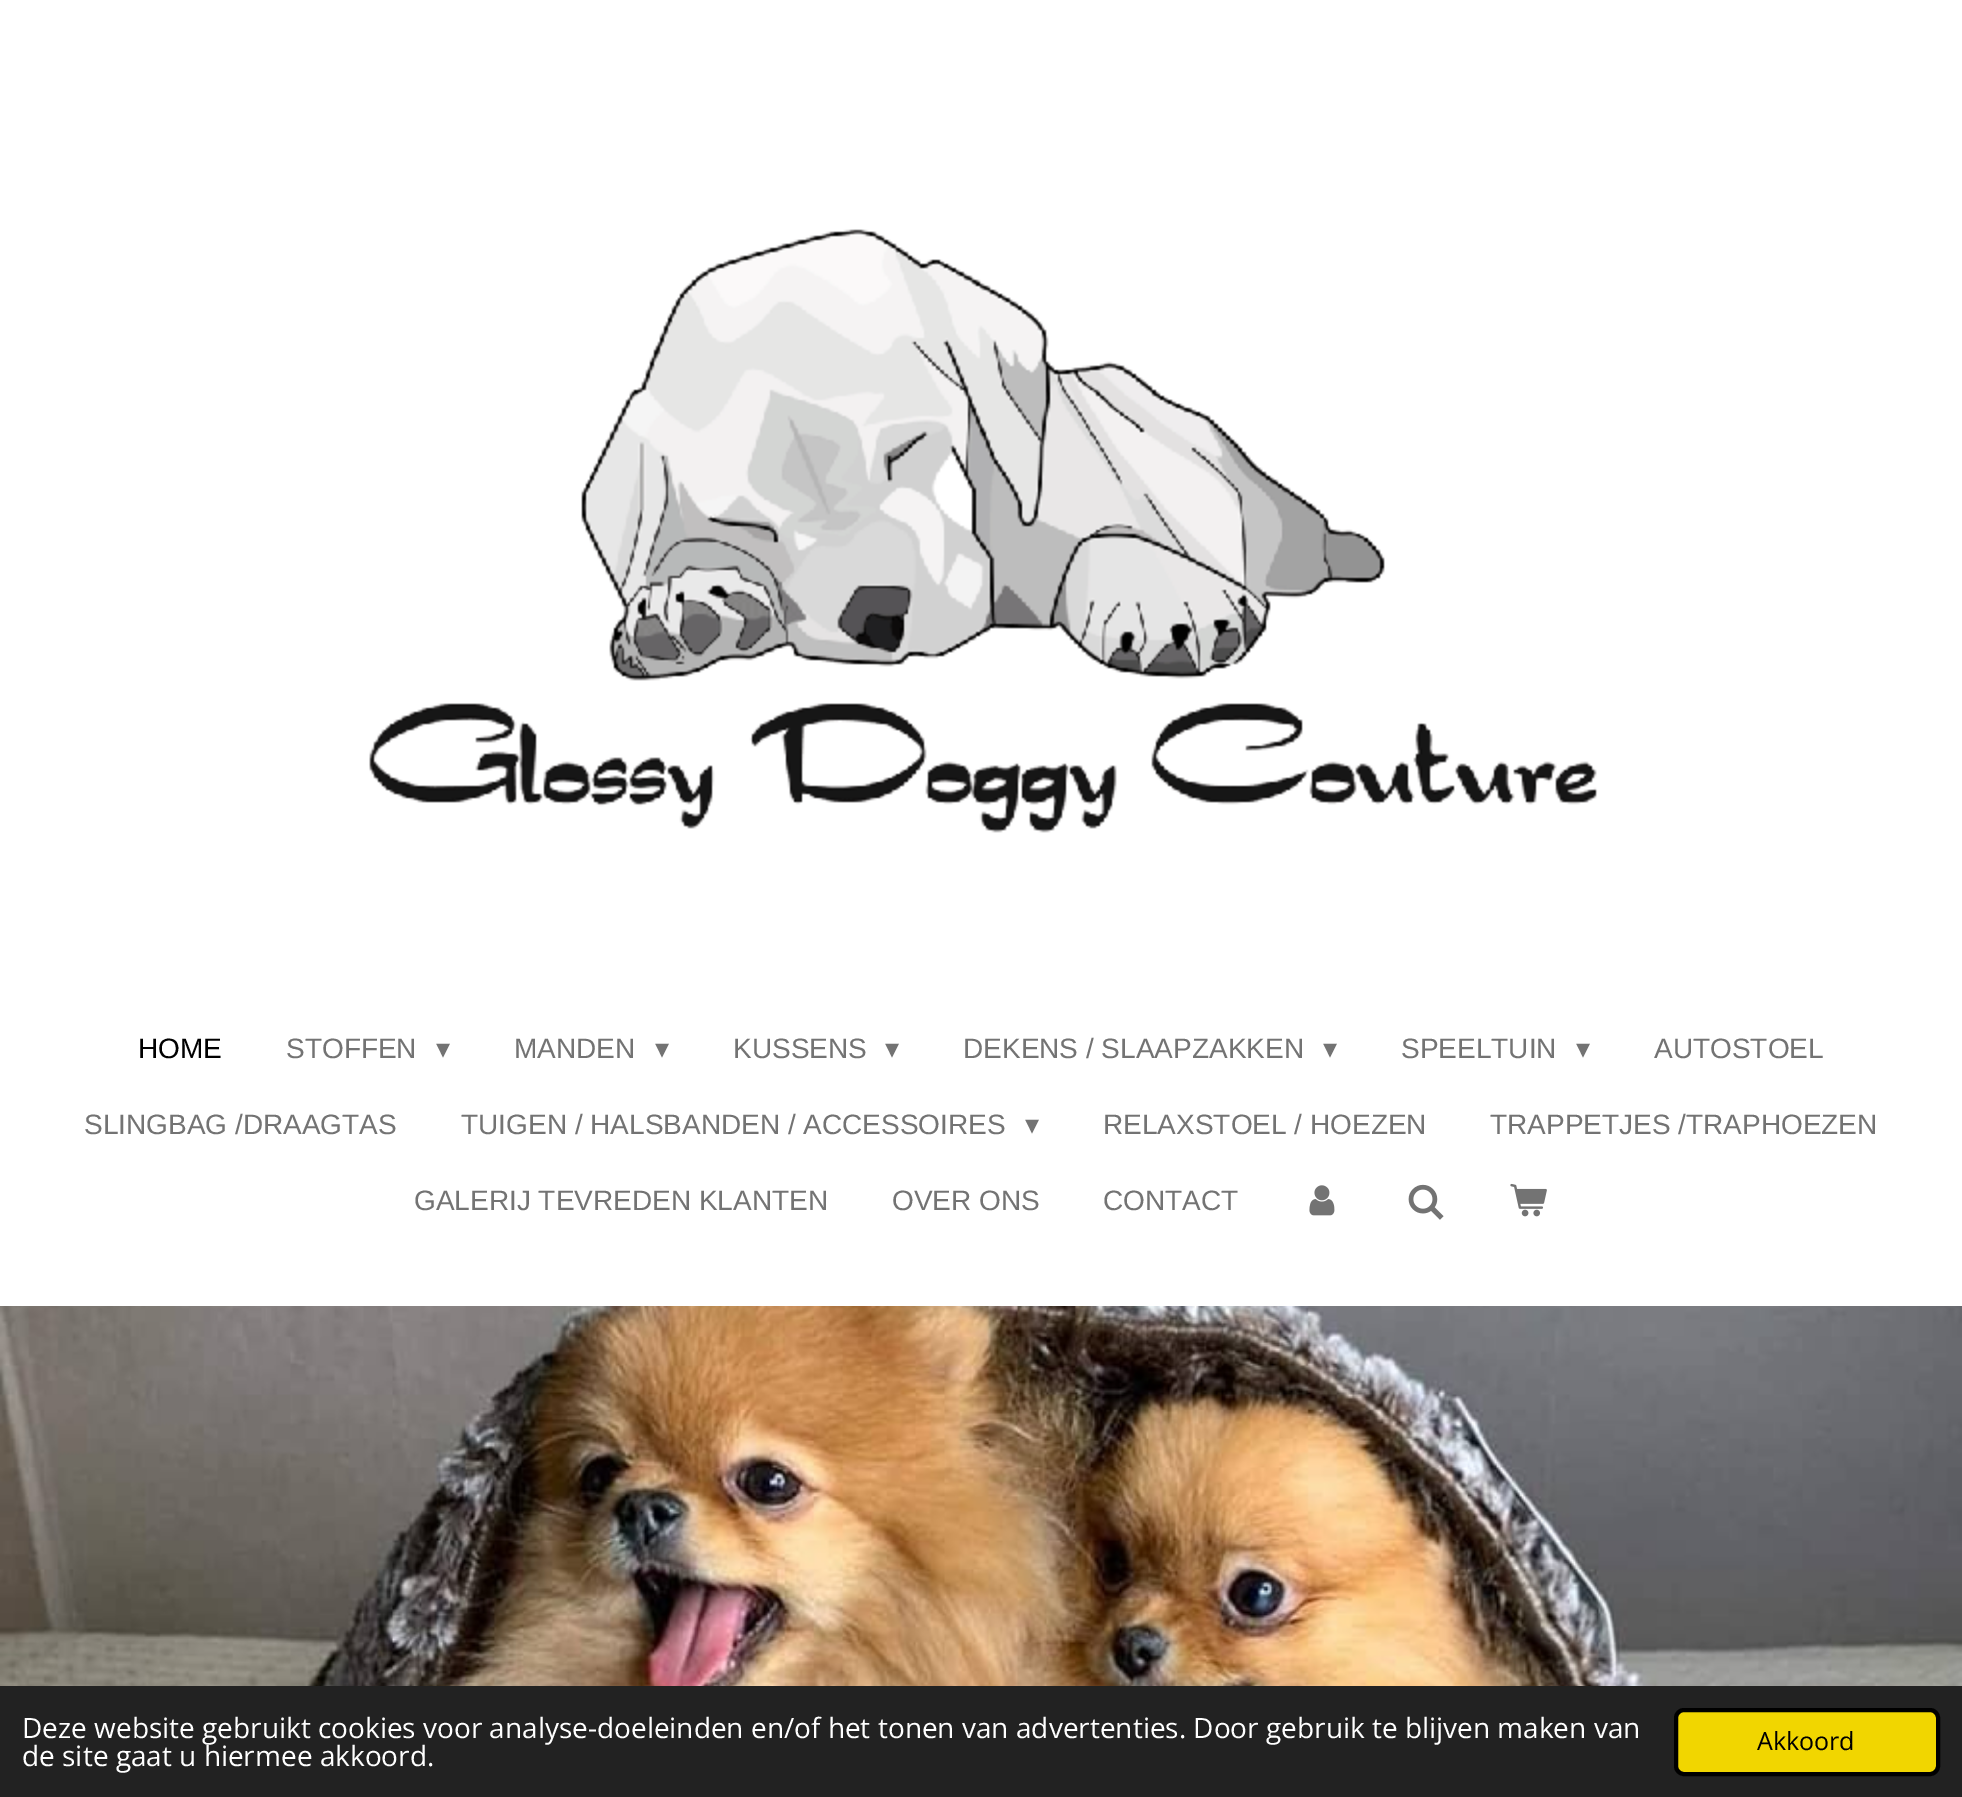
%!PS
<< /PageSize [1962 1797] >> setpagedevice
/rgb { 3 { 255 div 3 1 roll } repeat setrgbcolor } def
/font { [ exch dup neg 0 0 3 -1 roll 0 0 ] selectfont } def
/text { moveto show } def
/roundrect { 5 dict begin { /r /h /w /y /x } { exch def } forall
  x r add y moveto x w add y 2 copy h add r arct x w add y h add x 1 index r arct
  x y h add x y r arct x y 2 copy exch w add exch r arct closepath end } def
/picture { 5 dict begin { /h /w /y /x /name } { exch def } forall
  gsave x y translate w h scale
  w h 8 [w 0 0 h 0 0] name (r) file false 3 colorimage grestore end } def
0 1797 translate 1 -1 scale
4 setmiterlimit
255 255 255 rgb
0 0 1962 1797 rectfill
(img_01.rgb) 369 229 1229 604 picture
(img_02.rgb) 1309 1185 26 31 picture
(img_03.rgb) 1408 1184 36 36 picture
(img_04.rgb) 1510 1183 37 34 picture
(img_05.rgb) 0 1306 1962 380 picture
34 34 34 rgb
0 1686 1962 111 rectfill
241 214 0 rgb
1676 1710 262 64 8 roundrect gsave fill grestore
0 0 0 rgb
4 setlinewidth
stroke
/LiberationSans-Regular 28 font
(HOME) 138 1058 text
115 115 115 rgb
(STOFFEN) 286 1058 text
/DejaVuSans-Regular 28 font
(▾) 436 1058 text
/LiberationSans-Regular 28 font
(MANDEN) 514 1058 text
/DejaVuSans-Regular 28 font
(▾) 655 1058 text
/LiberationSans-Regular 28 font
(KUSSENS) 733 1058 text
/DejaVuSans-Regular 28 font
(▾) 885 1058 text
/LiberationSans-Regular 28 font
(DEKENS / SLAAPZAKKEN) 963 1058 text
/DejaVuSans-Regular 28 font
(▾) 1323 1058 text
/LiberationSans-Regular 28 font
(SPEELTUIN) 1401 1058 text
/DejaVuSans-Regular 28 font
(▾) 1576 1058 text
/LiberationSans-Regular 28 font
(AUTOSTOEL) 1654 1058 text
(SLINGBAG /DRAAGTAS) 84 1134 text
(TUIGEN / HALSBANDEN / ACCESSOIRES) 461 1134 text
/DejaVuSans-Regular 28 font
(▾) 1025 1134 text
/LiberationSans-Regular 28 font
(RELAXSTOEL / HOEZEN) 1103 1134 text
(TRAPPETJES /TRAPHOEZEN) 1490 1134 text
(GALERIJ TEVREDEN KLANTEN) 414 1210 text
(OVER ONS) 892 1210 text
(CONTACT) 1103 1210 text
/OpenSans-Regular 28 font
255 255 255 rgb
(Deze website gebruikt cookies voor analyse-doeleinden en/of het tonen van advertenties. Door gebruik te blijven maken van) 22 1738 text
(de site gaat u hiermee akkoord.) 22 1766 text
/OpenSans-Regular 25 font
0 0 0 rgb
(Akkoord) 1757 1750 text
showpage
